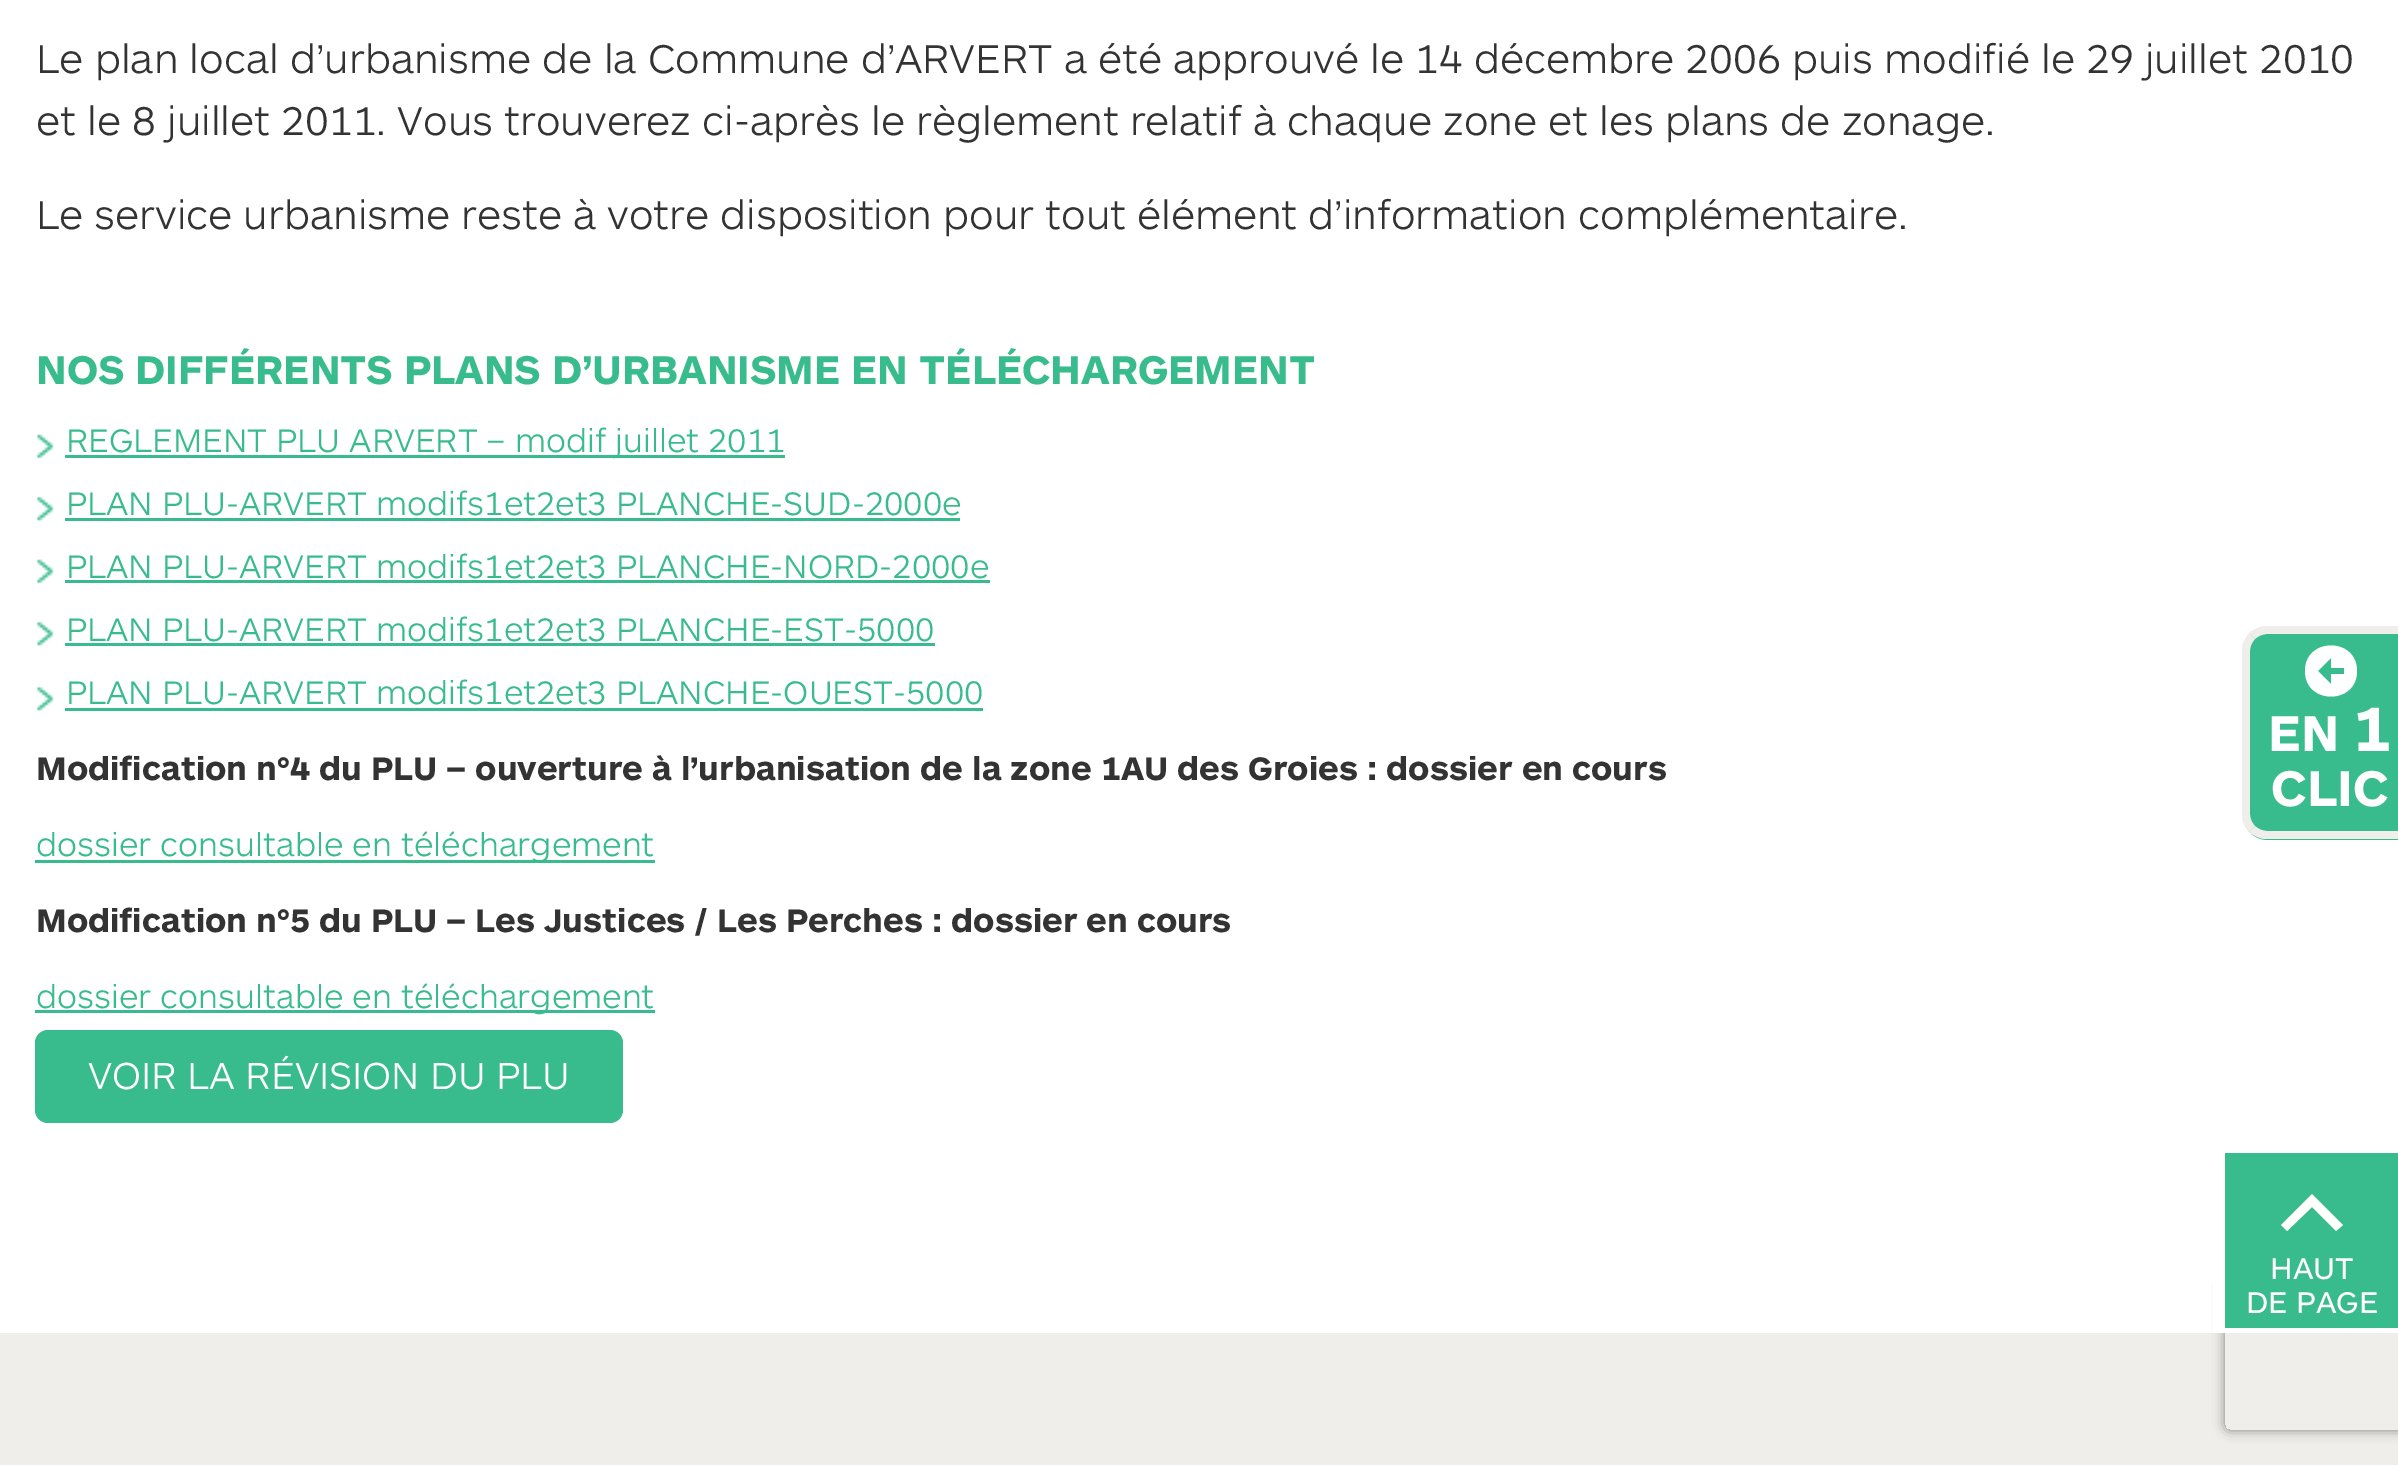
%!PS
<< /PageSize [2398 1465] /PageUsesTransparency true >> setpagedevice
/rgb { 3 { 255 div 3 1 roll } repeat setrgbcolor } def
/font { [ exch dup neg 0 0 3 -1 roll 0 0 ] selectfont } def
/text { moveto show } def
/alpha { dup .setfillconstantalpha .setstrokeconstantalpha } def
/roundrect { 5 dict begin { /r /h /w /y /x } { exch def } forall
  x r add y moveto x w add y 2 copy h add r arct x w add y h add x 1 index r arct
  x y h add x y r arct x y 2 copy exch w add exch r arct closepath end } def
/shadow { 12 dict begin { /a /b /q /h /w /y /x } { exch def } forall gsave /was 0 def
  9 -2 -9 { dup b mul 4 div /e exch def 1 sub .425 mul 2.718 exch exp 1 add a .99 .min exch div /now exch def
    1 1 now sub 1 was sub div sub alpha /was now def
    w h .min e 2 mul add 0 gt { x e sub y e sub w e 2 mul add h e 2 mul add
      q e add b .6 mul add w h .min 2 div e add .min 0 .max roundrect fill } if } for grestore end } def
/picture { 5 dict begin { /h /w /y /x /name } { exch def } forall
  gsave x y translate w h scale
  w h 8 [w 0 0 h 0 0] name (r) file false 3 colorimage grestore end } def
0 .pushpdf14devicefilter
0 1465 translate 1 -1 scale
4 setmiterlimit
255 255 255 rgb
0 0 2398 1465 rectfill
239 238 234 rgb
0 1333 2398 132 rectfill
gsave
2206 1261 moveto 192 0 rlineto 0 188 rlineto -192 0 rlineto closepath 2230 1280 moveto 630 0 rlineto 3 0 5 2 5 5 rcurveto 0 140 rlineto 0 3 -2 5 -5 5 rcurveto -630 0 rlineto -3 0 -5 -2 -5 -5 rcurveto 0 -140 rlineto 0 -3 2 -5 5 -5 rcurveto closepath eoclip newpath
128 128 128 rgb
2225 1280 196 150 5 6 1 shadow
grestore
255 255 255 rgb
2213 1268 175 65 rectfill
(img_01.rgb) 36 434 18 25 picture
56 187 141 rgb
65 455 720 3 rectfill
(img_02.rgb) 36 496 18 25 picture
65 518 895 3 rectfill
(img_01.rgb) 36 559 18 25 picture
65 580 925 3 rectfill
(img_02.rgb) 36 621 18 25 picture
65 643 870 3 rectfill
(img_02.rgb) 36 686 18 25 picture
65 708 918 3 rectfill
35 860 620 3 rectfill
35 1010 620 3 rectfill
35 1030 588 93 13 roundrect fill
2268 628 moveto 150 0 rlineto 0 212 rlineto -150 0 rlineto -14 0 -25 -11 -25 -25 rcurveto 0 -162 rlineto 0 -14 11 -25 25 -25 rcurveto closepath fill
239 238 234 rgb
2267 634 moveto -4 0 -9 2 -12 5 rcurveto -6 -6 rlineto 4 -3 9 -6 15 -7 rcurveto 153 0 rlineto -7 8 rlineto closepath fill
2264 839 moveto -6 -1 -11 -4 -15 -7 rcurveto 6 -6 rlineto 3 3 8 5 12 5 rcurveto 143 0 rlineto 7 8 rlineto closepath fill
2242 647 moveto 1 -5 4 -10 7 -14 rcurveto 6 6 rlineto -3 3 -5 7 -5 12 rcurveto 0 163 rlineto 0 5 2 9 5 12 rcurveto -6 6 rlineto -3 -4 -6 -9 -7 -14 rcurveto closepath fill
255 255 255 rgb
2357 671 moveto 0 -34 -52 -34 -52 0 rcurveto 0 34 52 34 52 0 rcurveto closepath 2318 671 moveto 13 -13 rlineto 0 10 rlineto 13 0 rlineto 0 6 rlineto -13 0 rlineto 0 10 rlineto closepath fill
56 187 141 rgb
2225 1153 173 175 rectfill
255 255 255 rgb
2287 1231 moveto 25 -24 rlineto 24 24 rlineto 7 -6 rlineto -31 -31 rlineto -31 31 rlineto closepath fill
/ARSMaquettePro-Light 41.6 font
51 51 51 rgb
(Le plan local d’urbanisme de la Commune d’ARVERT a été approuvé le 14 décembre 2006 puis modifié le 29 juillet 2010) 36 73 text
(et le 8 juillet 2011. Vous trouverez ci-après le règlement relatif à chaque zone et les plans de zonage.) 36 135 text
36 229 moveto -0.1 0 32 (Le service urbanisme reste à votre disposition pour tout élément d’information complémentaire.) widthshow
/ARSMaquettePro-Bold 41.6 font
56 187 141 rgb
36 384 moveto -0.25 0 32 (NOS DIFFÉRENTS PLANS D’URBANISME EN TÉLÉCHARGEMENT) widthshow
/ARSMaquettePro-Light 33.8 font
(REGLEMENT PLU ARVERT – modif juillet 2011) 66 452 text
(PLAN PLU-ARVERT modifs1et2et3 PLANCHE-SUD-2000e) 66 515 text
(PLAN PLU-ARVERT modifs1et2et3 PLANCHE-NORD-2000e) 66 578 text
(PLAN PLU-ARVERT modifs1et2et3 PLANCHE-EST-5000) 66 641 text
(PLAN PLU-ARVERT modifs1et2et3 PLANCHE-OUEST-5000) 66 704 text
/ARSMaquettePro-Bold 33.8 font
51 51 51 rgb
(Modification n°4 du PLU – ouverture à l’urbanisation de la zone 1AU des Groies : dossier en cours) 36 780 text
/ARSMaquettePro-Light 33.8 font
56 187 141 rgb
(dossier consultable en téléchargement) 36 856 text
/ARSMaquettePro-Bold 33.8 font
51 51 51 rgb
(Modification n°5 du PLU – Les Justices / Les Perches : dossier en cours) 36 932 text
/ARSMaquettePro-Light 33.8 font
56 187 141 rgb
(dossier consultable en téléchargement) 36 1008 text
/ARSMaquettePro-Light 39 font
255 255 255 rgb
(VOIR LA RÉVISION DU PLU) 88 1089 text
/ARSMaquettePro-Bold 52 font
(EN) 2268 751 text
/ARSMaquettePro-Bold 65 font
(1) 2353 751 text
/ARSMaquettePro-Bold 52 font
(CLIC) 2271 806 text
/ARSMaquettePro-Regular 31 font
(HAUT) 2270 1279 text
(DE PAGE) 2246 1313 text
.poppdf14devicefilter showpage
